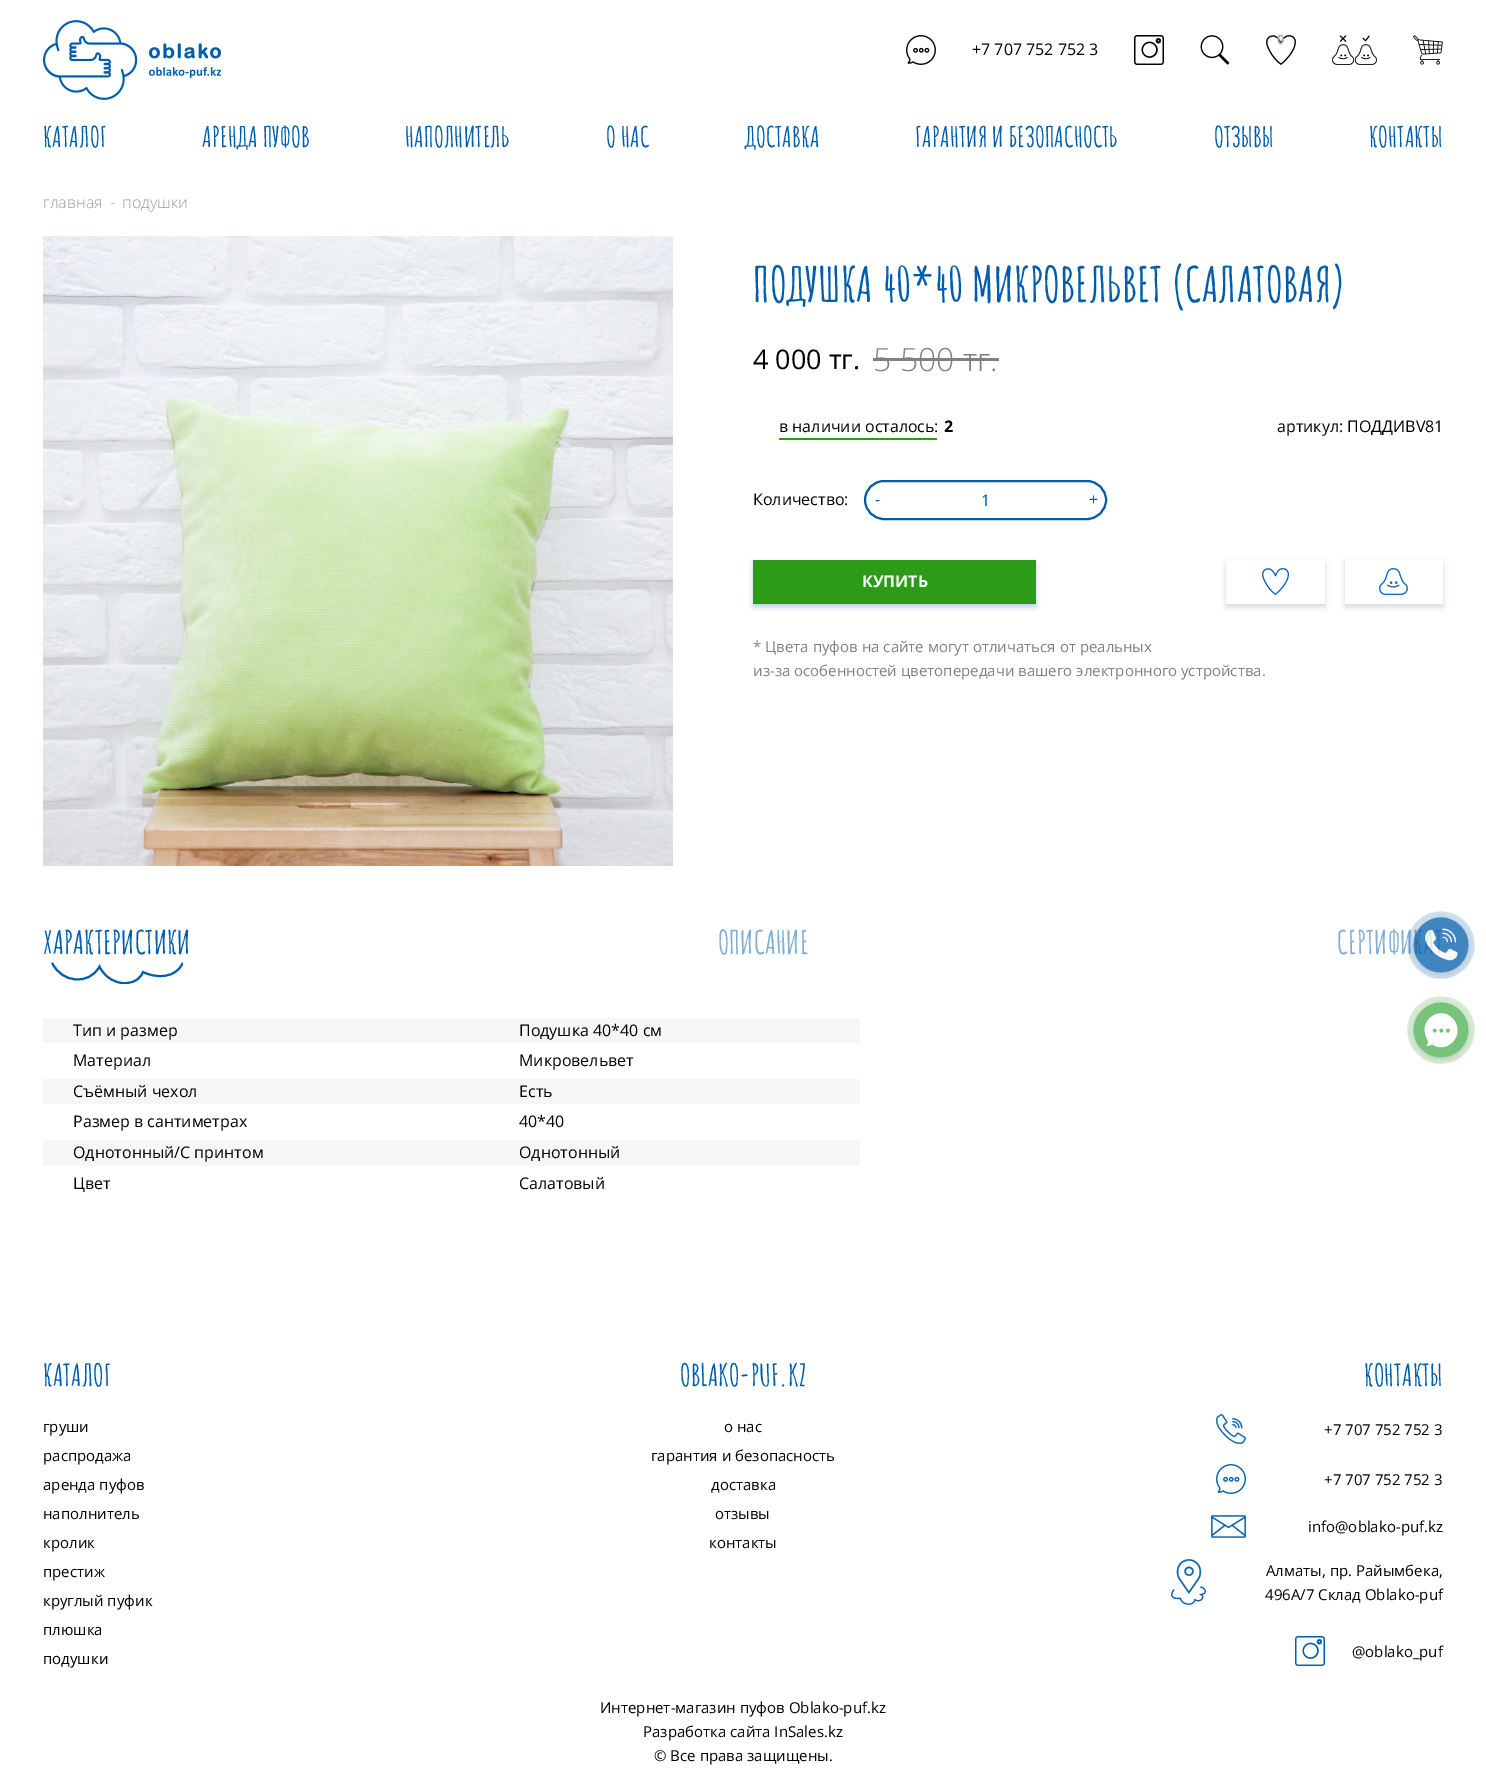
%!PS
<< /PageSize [1486 1787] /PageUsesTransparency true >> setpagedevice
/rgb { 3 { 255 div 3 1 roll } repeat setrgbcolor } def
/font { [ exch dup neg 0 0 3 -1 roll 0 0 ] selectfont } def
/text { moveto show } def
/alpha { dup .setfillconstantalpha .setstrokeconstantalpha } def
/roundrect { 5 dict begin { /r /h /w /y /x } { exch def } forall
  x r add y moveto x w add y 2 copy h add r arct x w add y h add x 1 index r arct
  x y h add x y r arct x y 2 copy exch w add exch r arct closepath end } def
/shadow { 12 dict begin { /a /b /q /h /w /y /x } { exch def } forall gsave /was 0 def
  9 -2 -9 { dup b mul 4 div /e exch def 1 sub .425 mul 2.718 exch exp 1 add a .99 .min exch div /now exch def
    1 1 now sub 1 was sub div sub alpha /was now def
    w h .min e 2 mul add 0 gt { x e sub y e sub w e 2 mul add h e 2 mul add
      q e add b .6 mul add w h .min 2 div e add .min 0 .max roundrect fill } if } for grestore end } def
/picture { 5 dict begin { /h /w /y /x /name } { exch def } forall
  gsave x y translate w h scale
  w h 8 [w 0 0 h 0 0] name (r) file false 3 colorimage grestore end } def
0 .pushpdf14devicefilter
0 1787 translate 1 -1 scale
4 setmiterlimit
255 255 255 rgb
0 0 1486 1787 rectfill
(img_01.rgb) 43 20 178 80 picture
(img_02.rgb) 906 35 30 30 picture
(img_03.rgb) 1134 35 30 30 picture
(img_04.rgb) 1200 35 30 30 picture
(img_05.rgb) 1266 35 30 30 picture
(img_06.rgb) 1332 35 45 30 picture
(img_07.rgb) 1413 35 30 30 picture
(img_08.rgb) 43 236 630 630 picture
128 128 128 rgb
873 358 126 3 rectfill
44 155 23 rgb
779 438 158 2 rectfill
0 93 171 rgb
2 setlinewidth
865 481 241 38 19 roundrect stroke
753 563 283 44 0 3 0.3 shadow
44 155 23 rgb
753 560 283 44 rectfill
gsave
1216 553 moveto 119 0 rlineto 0 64 rlineto -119 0 rlineto closepath 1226 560 moveto 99 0 rlineto 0 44 rlineto -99 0 rlineto closepath eoclip newpath
0 0 0 rgb
1226 563 99 44 0 3 0.16 shadow
grestore
(img_09.rgb) 1262 568 27 27 picture
gsave
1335 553 moveto 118 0 rlineto 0 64 rlineto -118 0 rlineto closepath 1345 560 moveto 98 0 rlineto 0 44 rlineto -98 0 rlineto closepath eoclip newpath
0 0 0 rgb
1345 563 98 44 0 3 0.16 shadow
grestore
(img_10.rgb) 1379 568 29 27 picture
gsave
51 962 132 22 rectclip
0 93 171 rgb
1 setlinecap
182.5 963.5 moveto -7 15 -26.5 15 -39.5 8.5 rcurveto 0 0 -4 12.5 -21 11 rcurveto -16.5 -2 -22.5 -16.5 -22.5 -16.5 rcurveto -10.5 19.5 -38 16 -47 -3 rcurveto stroke
grestore
246 246 246 rgb
43 1018 817 25 rectfill
43 1079 817 25 rectfill
43 1140 817 26 rectfill
(img_12.rgb) 1407 996 68 68 picture
(img_13.rgb) 1216 1414 30 30 picture
(img_14.rgb) 1216 1464 30 30 picture
(img_15.rgb) 1211 1515 35 23 picture
(img_16.rgb) 1171 1559 35 46 picture
(img_17.rgb) 1295 1636 30 30 picture
/OpenSans-Regular 16 font
0 0 0 rgb
(+7 707 752 752 3) 972 55 text
/OpenSans-Bold 13 font
175 175 175 rgb
(0) 1277 44 text
/AmaticSC-Bold 28 font
0 93 171 rgb
(КАТАЛОГ) 43 147 text
(АРЕНДА ПУФОВ) 202 147 text
(НАПОЛНИТЕЛЬ) 405 147 text
(О НАС) 606 147 text
(ДОСТАВКА) 745 147 text
(ГАРАНТИЯ И БЕЗОПАСНОСТЬ) 915 147 text
(ОТЗЫВЫ) 1214 147 text
(КОНТАКТЫ) 1369 147 text
/OpenSans-Light 16 font
153 153 153 rgb
(главная) 43 208 text
184 184 184 rgb
(-) 110 208 text
153 153 153 rgb
(подушки) 122 208 text
/AmaticSC-Bold 48 font
0 93 171 rgb
(ПОДУШКА 40*40 МИКРОВЕЛЬВЕТ \(САЛАТОВАЯ\)) 753 302 text
/OpenSans-Regular 27 font
0 0 0 rgb
(4 000 тг.) 753 369 text
/OpenSans-Light 32 font
128 128 128 rgb
(5 500 тг.) 873 371 text
/OpenSans-Regular 16 font
0 0 0 rgb
(в наличии осталось:) 779 432 text
/OpenSans-Bold 16 font
(2) 944 432 text
/OpenSans-Regular 16 font
(артикул: ПОДДИВV81) 1277 432 text
(Количество:) 753 505 text
0 93 171 rgb
(-) 875 505 text
(1) 981 506 text
(+) 1089 505 text
/OpenSans-Bold 16 font
255 255 255 rgb
(КУПИТЬ) 862 587 text
/OpenSans-Regular 15 font
128 128 128 rgb
(* Цвета пуфов на сайте могут отличаться от реальных) 753 652 text
(из-за особенностей цветопередачи вашего электронного устройства.) 753 676 text
/AmaticSC-Bold 32 font
0 93 171 rgb
(ХАРАКТЕРИСТИКИ) 43 954 text
128 174 213 rgb
(ОПИСАНИЕ) 718 954 text
(СЕРТИФИ) 1337 954 text
/OpenSans-Regular 16 font
0 0 0 rgb
(Тип и размер) 73 1036 text
(Подушка 40*40 см) 519 1036 text
(Материал) 73 1066 text
(Микровельвет) 519 1066 text
(Съёмный чехол) 73 1097 text
(Есть) 519 1097 text
(Размер в сантиметрах) 73 1127 text
(40*40) 519 1127 text
(Однотонный/С принтом) 73 1158 text
(Однотонный) 519 1158 text
(Цвет) 73 1189 text
(Салатовый) 519 1189 text
(img_11.rgb) 1407 911 68 68 picture
/AmaticSC-Bold 30 font
0 93 171 rgb
(КАТАЛОГ) 43 1386 text
/OpenSans-Regular 15 font
0 0 0 rgb
(груши) 43 1432 text
(распродажа) 43 1461 text
(аренда пуфов) 43 1490 text
(наполнитель) 43 1519 text
(кролик) 43 1548 text
(престиж) 43 1577 text
(круглый пуфик) 43 1606 text
(плюшка) 43 1635 text
(подушки) 43 1664 text
/AmaticSC-Bold 30 font
0 93 171 rgb
(OBLAKO-PUF.KZ) 680 1386 text
/OpenSans-Regular 15 font
0 0 0 rgb
(о нас) 724 1432 text
(гарантия и безопасность) 651 1461 text
(доставка) 711 1490 text
(отзывы) 715 1519 text
(контакты) 709 1548 text
/AmaticSC-Bold 30 font
0 93 171 rgb
(КОНТАКТЫ) 1364 1386 text
/OpenSans-Regular 15 font
0 0 0 rgb
(+7 707 752 752 3) 1324 1435 text
(+7 707 752 752 3) 1324 1485 text
(info@oblako-puf.kz) 1308 1532 text
(Алматы, пр. Райымбека,) 1266 1576 text
(496А/7 Склад Oblako-puf) 1265 1600 text
(@oblako_puf) 1352 1657 text
(Интернет-магазин пуфов Oblako-puf.kz) 600 1713 text
(Разработка сайта InSales.kz) 643 1737 text
(© Все права защищены.) 654 1761 text
.poppdf14devicefilter showpage
